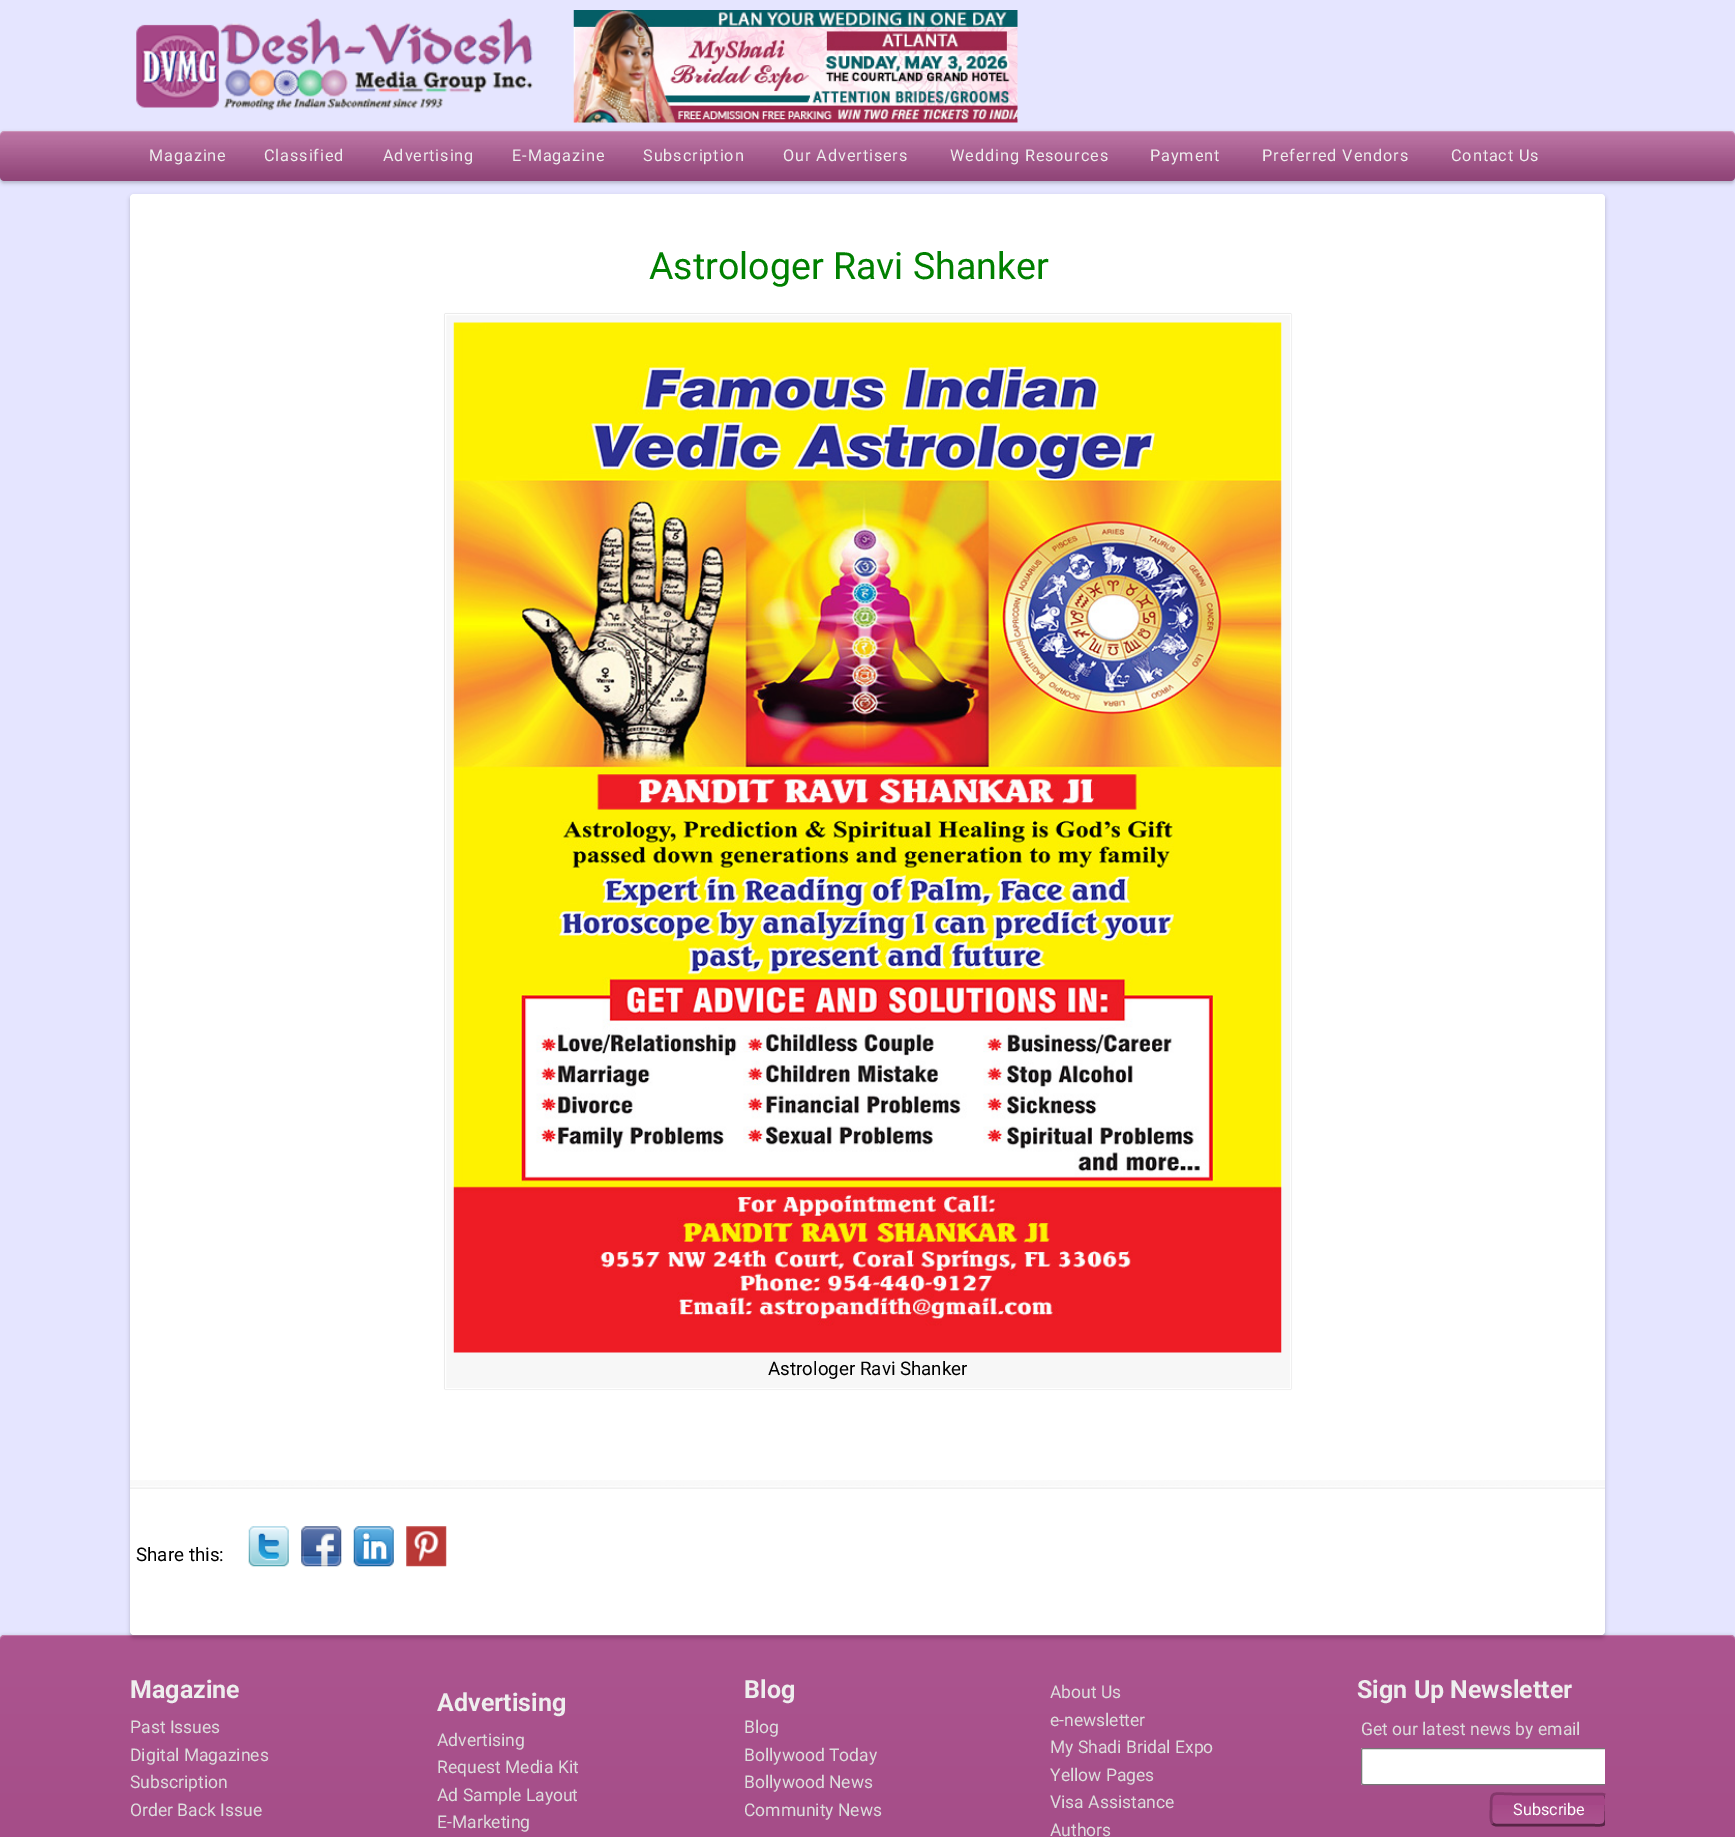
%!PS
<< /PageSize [1735 1837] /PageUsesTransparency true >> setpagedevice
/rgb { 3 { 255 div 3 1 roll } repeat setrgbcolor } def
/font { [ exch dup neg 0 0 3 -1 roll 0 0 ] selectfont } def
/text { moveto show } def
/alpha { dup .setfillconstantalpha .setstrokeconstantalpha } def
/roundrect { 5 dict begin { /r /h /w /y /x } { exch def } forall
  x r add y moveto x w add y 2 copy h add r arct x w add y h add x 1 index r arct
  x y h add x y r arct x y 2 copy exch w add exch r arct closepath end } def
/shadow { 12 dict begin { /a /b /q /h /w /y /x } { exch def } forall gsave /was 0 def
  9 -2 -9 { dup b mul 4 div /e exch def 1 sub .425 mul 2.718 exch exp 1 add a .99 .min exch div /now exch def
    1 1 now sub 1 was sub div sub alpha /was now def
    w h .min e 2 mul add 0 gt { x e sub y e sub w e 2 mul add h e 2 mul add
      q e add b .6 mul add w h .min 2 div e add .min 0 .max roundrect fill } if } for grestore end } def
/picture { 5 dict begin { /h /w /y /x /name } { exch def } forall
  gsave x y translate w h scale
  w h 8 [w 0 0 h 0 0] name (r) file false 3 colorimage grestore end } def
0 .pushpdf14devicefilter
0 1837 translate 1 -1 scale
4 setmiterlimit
229 229 255 rgb
0 0 1735 1837 rectfill
(img_01.rgb) 136 18 397 93 picture
(img_02.rgb) 573 10 445 113 picture
0 0 0 rgb
0 133 1735 50 4 2 0.23 shadow
165 70 134 rgb
0 131 1735 50 4 roundrect fill
(img_03.rgb) 0 131 1735 50 picture
0.23 alpha
255 255 255 rgb
4 132 moveto 1727 0 rlineto 2 0 4 2 4 4 rcurveto 0 -1 rlineto 0 -2 -2 -4 -4 -4 rcurveto -1727 0 rlineto -2 0 -4 2 -4 4 rcurveto 0 1 rlineto 0 -2 2 -4 4 -4 rcurveto closepath fill
1 alpha
0 0 0 rgb
0 1636 1735 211 4 2 0.23 shadow
165 70 134 rgb
0 1635 1735 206 4 roundrect fill
0.08 alpha
gsave 0 1635 1735 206 4 roundrect clip newpath
<< /ShadingType 2 /ColorSpace /DeviceRGB /Coords [868 1635 868 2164] /Extend [true true] /Function << /FunctionType 2 /Domain [0 1] /C0 [1 1 1] /C1 [0 0 0] /N 1 >> >> shfill grestore
0.23 alpha
255 255 255 rgb
4 1636 moveto 1727 0 rlineto 2 0 4 2 4 4 rcurveto 0 -1 rlineto 0 -2 -2 -4 -4 -4 rcurveto -1727 0 rlineto -2 0 -4 2 -4 4 rcurveto 0 1 rlineto 0 -2 2 -4 4 -4 rcurveto closepath fill
1 alpha
0 0 0 rgb
130 196 1475 1442 4 2 0.2 shadow
255 255 255 rgb
130 194 1475 1441 4 roundrect fill
0 0 0 rgb
445 314 846 1075 0 0.5 0.3 shadow
247 247 247 rgb
445.5 314.5 moveto 845 0 rlineto 0 1074 rlineto -845 0 rlineto closepath gsave fill grestore
255 255 255 rgb
stroke
(img_04.rgb) 453 322 829 1031 picture
(img_05.rgb) 130 1480 1475 9 picture
(img_06.rgb) 248 1526 41 41 picture
(img_07.rgb) 301 1526 41 41 picture
(img_08.rgb) 353 1526 41 41 picture
(img_09.rgb) 406 1526 41 41 picture
1363.5 1748 moveto 241.5 0 rlineto 0 37 rlineto -241.5 0 rlineto -1.5 0 -2.5 -1 -2.5 -2.5 rcurveto 0 -32 rlineto 0 -1.5 1 -2.5 2.5 -2.5 rcurveto closepath fill
gsave
1358 1679 247 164 rectclip
118 118 118 rgb
1361.5 1748.5 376 36 2 roundrect stroke
165 70 134 rgb
1490 1793 118 33 6 roundrect fill
grestore
(img_10.rgb) 1490 1805 115 21 picture
gsave
1358 1679 247 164 rectclip
88 37 71 rgb
2.5 setlinewidth
1605 1795 moveto 2.5 3 1 11 1 14.5 rcurveto 0 19.5 0.5 15.5 -22 15.5 rcurveto -88 0 rlineto -1 0 -2.5 -0.5 -3.5 -1.5 rcurveto stroke
grestore
132 56 107 rgb
2.5 setlinewidth
1492.5 1823.5 moveto -2.5 -3 -1.5 -10.5 -1.5 -14 rcurveto 0 -20 0 -15.5 23 -15.5 rcurveto 87 0 rlineto 1.5 0 3 0.5 4 1 rcurveto stroke
/Roboto-Regular 16.25 font
238 238 238 rgb
149 161 moveto 0.9 0 (Magazine) ashow
264 161 moveto 0.9 0 (Classified) ashow
383 161 moveto 0.9 0 (Advertising) ashow
512 161 moveto 0.9 0 (E-Magazine) ashow
643 161 moveto 0.9 0 (Subscription) ashow
783 161 moveto 0.9 0 (Our Advertisers) ashow
950 161 moveto 0.9 0 (Wedding Resources) ashow
1150 161 moveto 0.9 0 (Payment) ashow
1262 161 moveto 0.9 0 (Preferred Vendors) ashow
1451 161 moveto 0.9 0 (Contact Us) ashow
/Roboto-Regular 37.5 font
0 128 0 rgb
(Astrologer Ravi Shanker) 649 279 text
/Roboto-Regular 18.75 font
0 0 0 rgb
(Astrologer Ravi Shanker) 768 1375 text
(Share this:) 136 1561 text
/Roboto-Bold 25 font
238 238 238 rgb
(Magazine) 130 1698 text
/Roboto-Regular 17.5 font
221 221 221 rgb
(Past Issues) 130 1733 text
(Digital Magazines) 130 1761 text
(Subscription) 130 1788 text
(Order Back Issue) 130 1816 text
/Roboto-Bold 25 font
238 238 238 rgb
(Advertising) 437 1711 text
/Roboto-Regular 17.5 font
221 221 221 rgb
(Advertising) 437 1746 text
(Request Media Kit) 437 1773 text
(Ad Sample Layout) 437 1801 text
(E-Marketing) 437 1828 text
/Roboto-Bold 25 font
238 238 238 rgb
(Blog) 744 1698 text
/Roboto-Regular 17.5 font
221 221 221 rgb
(Blog) 744 1733 text
(Bollywood Today) 744 1761 text
(Bollywood News) 744 1788 text
(Community News) 744 1816 text
(About Us) 1050 1698 text
(e-newsletter) 1050 1726 text
(My Shadi Bridal Expo) 1050 1753 text
(Yellow Pages) 1050 1781 text
(Visa Assistance) 1050 1808 text
(Authors) 1050 1836 text
/Roboto-Bold 25 font
238 238 238 rgb
(Sign Up Newsletter) 1357 1698 text
/Roboto-Regular 17.5 font
221 221 221 rgb
(Get our latest news by email) 1361 1735 text
/Roboto-Regular 16.25 font
255 255 255 rgb
(Subscribe) 1513 1815 text
.poppdf14devicefilter showpage
